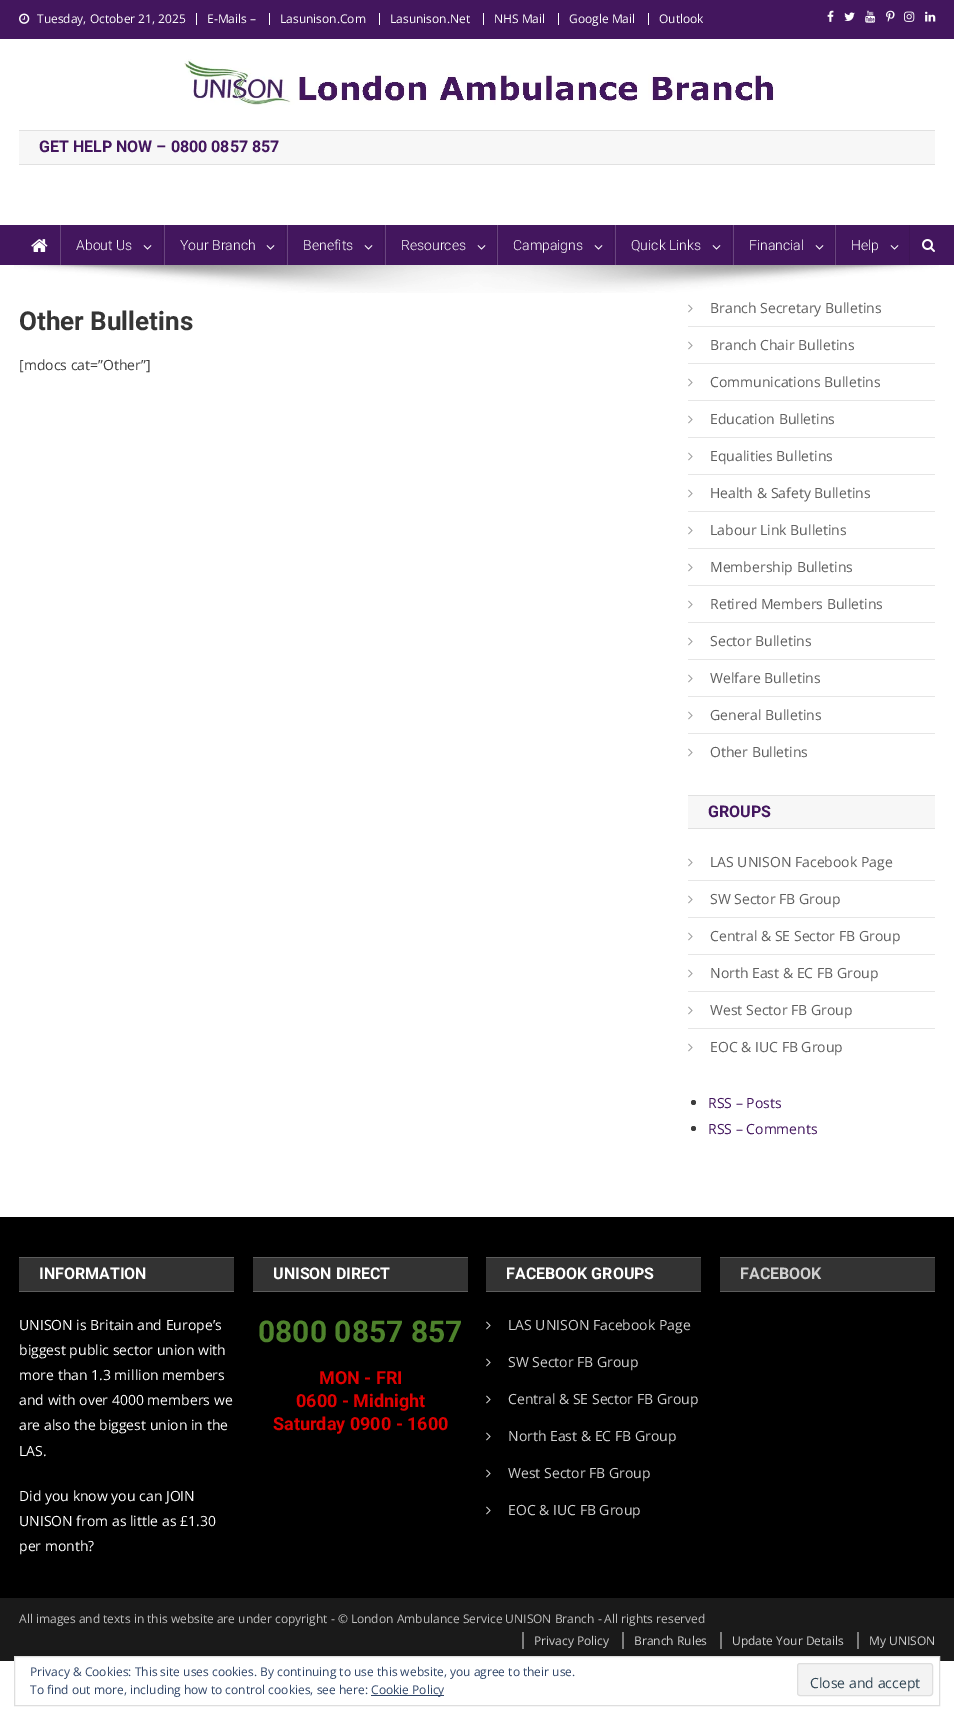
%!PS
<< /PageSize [954 1720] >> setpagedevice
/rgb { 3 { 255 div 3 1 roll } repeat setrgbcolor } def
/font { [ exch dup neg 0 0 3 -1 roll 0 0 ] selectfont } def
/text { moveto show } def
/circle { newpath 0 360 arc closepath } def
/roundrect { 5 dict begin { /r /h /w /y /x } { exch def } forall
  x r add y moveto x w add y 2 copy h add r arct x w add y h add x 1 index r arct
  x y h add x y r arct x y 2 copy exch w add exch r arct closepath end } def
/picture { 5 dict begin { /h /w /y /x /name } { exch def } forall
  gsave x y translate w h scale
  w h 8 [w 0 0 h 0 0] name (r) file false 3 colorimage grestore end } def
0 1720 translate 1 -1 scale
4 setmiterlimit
255 255 255 rgb
0 0 954 1720 rectfill
67 22 94 rgb
0 0 954 39 rectfill
(img_01.rgb) 19 13 11 11 picture
255 255 255 rgb
196 13 1 12 rectfill
269 13 1 12 rectfill
379 13 1 12 rectfill
483 13 1 12 rectfill
558 13 1 12 rectfill
648 13 1 12 rectfill
(img_02.rgb) 827 10 7 12 picture
(img_03.rgb) 844 12 11 9 picture
(img_04.rgb) 865 10 11 13 picture
(img_05.rgb) 886 10 9 12 picture
(img_06.rgb) 904 11 11 11 picture
(img_07.rgb) 925 11 11 11 picture
(img_08.rgb) 184 59 590 46 picture
247 247 247 rgb
19 131 916 33 rectfill
225 225 225 rgb
19 130 916 1 rectfill
19 164 916 1 rectfill
67 22 94 rgb
0 225 954 40 rectfill
(img_09.rgb) 31 239 17 13 picture
62 20 86 rgb
162 225 1 40 rectfill
105 69 126 rgb
60 225 1 40 rectfill
(img_10.rgb) 143 245 9 5 picture
62 20 86 rgb
285 225 1 40 rectfill
105 69 126 rgb
164 225 1 40 rectfill
(img_10.rgb) 266 245 9 5 picture
62 20 86 rgb
383 225 1 40 rectfill
105 69 126 rgb
287 225 1 40 rectfill
(img_10.rgb) 364 245 9 5 picture
62 20 86 rgb
496 225 1 40 rectfill
105 69 126 rgb
385 225 1 40 rectfill
(img_10.rgb) 477 245 9 5 picture
62 20 86 rgb
613 225 1 40 rectfill
105 69 126 rgb
497 225 1 40 rectfill
(img_10.rgb) 594 245 9 5 picture
62 20 86 rgb
731 225 1 40 rectfill
105 69 126 rgb
615 225 1 40 rectfill
(img_10.rgb) 712 245 9 5 picture
62 20 86 rgb
834 225 1 40 rectfill
105 69 126 rgb
733 225 1 40 rectfill
(img_10.rgb) 815 245 9 5 picture
62 20 86 rgb
909 225 1 40 rectfill
105 69 126 rgb
835 225 1 40 rectfill
(img_10.rgb) 890 245 9 5 picture
(img_11.rgb) 922 239 13 13 picture
(img_12.rgb) 14 265 925 28 picture
230 230 230 rgb
688 326 247 1 rectfill
(img_13.rgb) 688 304 5 9 picture
688 363 247 1 rectfill
(img_13.rgb) 688 341 5 9 picture
688 400 247 1 rectfill
(img_13.rgb) 688 378 5 9 picture
688 437 247 1 rectfill
(img_13.rgb) 688 415 5 9 picture
688 474 247 1 rectfill
(img_13.rgb) 688 452 5 9 picture
688 511 247 1 rectfill
(img_13.rgb) 688 489 5 9 picture
688 548 247 1 rectfill
(img_13.rgb) 688 526 5 9 picture
688 585 247 1 rectfill
(img_13.rgb) 688 563 5 9 picture
688 622 247 1 rectfill
(img_13.rgb) 688 600 5 9 picture
688 659 247 1 rectfill
(img_13.rgb) 688 637 5 9 picture
688 696 247 1 rectfill
(img_13.rgb) 688 674 5 9 picture
688 733 247 1 rectfill
(img_13.rgb) 688 711 5 9 picture
(img_13.rgb) 688 748 5 9 picture
247 247 247 rgb
688 796 247 32 rectfill
225 225 225 rgb
688 795 247 1 rectfill
688 828 247 1 rectfill
230 230 230 rgb
688 880 247 1 rectfill
(img_13.rgb) 688 858 5 9 picture
688 917 247 1 rectfill
(img_13.rgb) 688 895 5 9 picture
688 954 247 1 rectfill
(img_13.rgb) 688 932 5 9 picture
688 991 247 1 rectfill
(img_13.rgb) 688 969 5 9 picture
688 1028 247 1 rectfill
(img_13.rgb) 688 1006 5 9 picture
(img_13.rgb) 688 1043 5 9 picture
61 61 61 rgb
693.5 1102.5 2.5 circle fill
693.5 1128.5 2.5 circle fill
0 0 0 rgb
0 1217 954 381 rectfill
51 51 51 rgb
19 1258 215 33 rectfill
92 92 92 rgb
19 1257 215 1 rectfill
19 1291 215 1 rectfill
51 51 51 rgb
253 1258 215 33 rectfill
92 92 92 rgb
253 1257 215 1 rectfill
253 1291 215 1 rectfill
51 51 51 rgb
486 1258 215 33 rectfill
92 92 92 rgb
486 1257 215 1 rectfill
486 1291 215 1 rectfill
(img_14.rgb) 486 1321 5 9 picture
(img_14.rgb) 486 1358 5 9 picture
(img_14.rgb) 486 1395 5 9 picture
(img_14.rgb) 486 1432 5 9 picture
(img_14.rgb) 486 1469 5 9 picture
(img_14.rgb) 486 1506 5 9 picture
51 51 51 rgb
720 1258 215 33 rectfill
92 92 92 rgb
720 1257 215 1 rectfill
720 1291 215 1 rectfill
26 26 26 rgb
0 1598 954 63 rectfill
127 127 127 rgb
522 1632 2 17 rectfill
622 1632 2 17 rectfill
720 1632 2 17 rectfill
857 1632 2 17 rectfill
255 255 255 rgb
15 1657 924 4 rectfill
222 222 222 rgb
14.5 1656.5 925 49 rectstroke
46 68 103 rgb
371 1695 73 1 rectfill
243 243 243 rgb
797.5 1663.5 135 32 2.5 roundrect gsave fill grestore
222 222 222 rgb
stroke
/OpenSans-Regular 12 font
255 255 255 rgb
(Tuesday, October 21, 2025) 37 23 text
(E-Mails –) 207 23 text
(Lasunison.Com) 280 23 text
(Lasunison.Net) 390 23 text
(NHS Mail) 494 23 text
(Google Mail) 569 23 text
(Outlook) 659 23 text
/Roboto-Bold 16 font
67 22 94 rgb
(GET HELP NOW – 0800 0857 857) 39 152 text
/Roboto-Light 14 font
255 255 255 rgb
(About Us) 76 250 text
(Your Branch) 180 250 text
(Benefits) 303 250 text
(Resources) 401 250 text
(Campaigns) 513 250 text
(Quick Links) 631 250 text
(Financial) 749 250 text
(Help) 851 250 text
/Roboto-Bold 26 font
53 53 53 rgb
(Other Bulletins) 19 330 text
/OpenSans-Regular 14 font
61 61 61 rgb
([mdocs cat=”Other”]) 19 370 text
95 95 95 rgb
(Branch Secretary Bulletins) 710 313 text
(Branch Chair Bulletins) 710 350 text
(Communications Bulletins) 710 387 text
(Education Bulletins) 710 424 text
(Equalities Bulletins) 710 461 text
(Health & Safety Bulletins) 710 498 text
(Labour Link Bulletins) 710 535 text
(Membership Bulletins) 710 572 text
(Retired Members Bulletins) 710 609 text
(Sector Bulletins) 710 646 text
(Welfare Bulletins) 710 683 text
(General Bulletins) 710 720 text
(Other Bulletins) 710 757 text
/Roboto-Bold 16 font
67 22 94 rgb
(GROUPS) 708 817 text
/OpenSans-Regular 14 font
95 95 95 rgb
(LAS UNISON Facebook Page) 710 867 text
(SW Sector FB Group) 710 904 text
(Central & SE Sector FB Group) 710 941 text
(North East & EC FB Group) 710 978 text
(West Sector FB Group) 710 1015 text
(EOC & IUC FB Group) 710 1052 text
67 22 94 rgb
(RSS – Posts) 708 1108 text
(RSS – Comments) 708 1134 text
/Roboto-Bold 16 font
255 255 255 rgb
(INFORMATION) 39 1279 text
/OpenSans-Regular 14 font
(UNISON is Britain and Europe’s) 19 1330 text
(biggest public sector union with) 19 1355 text
(more than 1.3 million members) 19 1380 text
(and with over 4000 members we) 19 1405 text
(are also the biggest union in the) 19 1430 text
(LAS.) 19 1456 text
(Did you know you can JOIN) 19 1501 text
(UNISON from as little as £1.30) 19 1526 text
(per month?) 19 1551 text
/Roboto-Bold 16 font
(UNISON DIRECT) 273 1279 text
/Roboto-Bold 30 font
78 130 44 rgb
(0800 0857 857) 258 1342 text
/Roboto-Bold 18 font
221 0 0 rgb
(MON - FRI) 319 1384 text
(0600 - Midnight) 296 1407 text
(Saturday 0900 - 1600) 273 1430 text
/Roboto-Bold 16 font
255 255 255 rgb
(FACEBOOK GROUPS) 506 1279 text
/OpenSans-Regular 14 font
207 207 207 rgb
(LAS UNISON Facebook Page) 508 1330 text
(SW Sector FB Group) 508 1367 text
(Central & SE Sector FB Group) 508 1404 text
(North East & EC FB Group) 508 1441 text
(West Sector FB Group) 508 1478 text
(EOC & IUC FB Group) 508 1515 text
/Roboto-Bold 16 font
(FACEBOOK) 740 1279 text
/OpenSans-Regular 12 font
191 191 191 rgb
(All images and texts in this website are under copyright - © London Ambulance Service UNISON Branch - All rights reserved) 19 1623 text
207 207 207 rgb
(Privacy Policy) 534 1645 text
(Branch Rules) 634 1645 text
(Update Your Details) 732 1645 text
(My UNISON) 869 1645 text
46 68 103 rgb
(Privacy & Cookies: This site uses cookies. By continuing to use this website, you agree to their use.) 30 1676 text
(To find out more, including how to control cookies, see here:) 30 1694 text
(Cookie Policy) 371 1694 text
/OpenSans-Regular 14 font
46 68 83 rgb
(Close and accept) 810 1688 text
showpage
